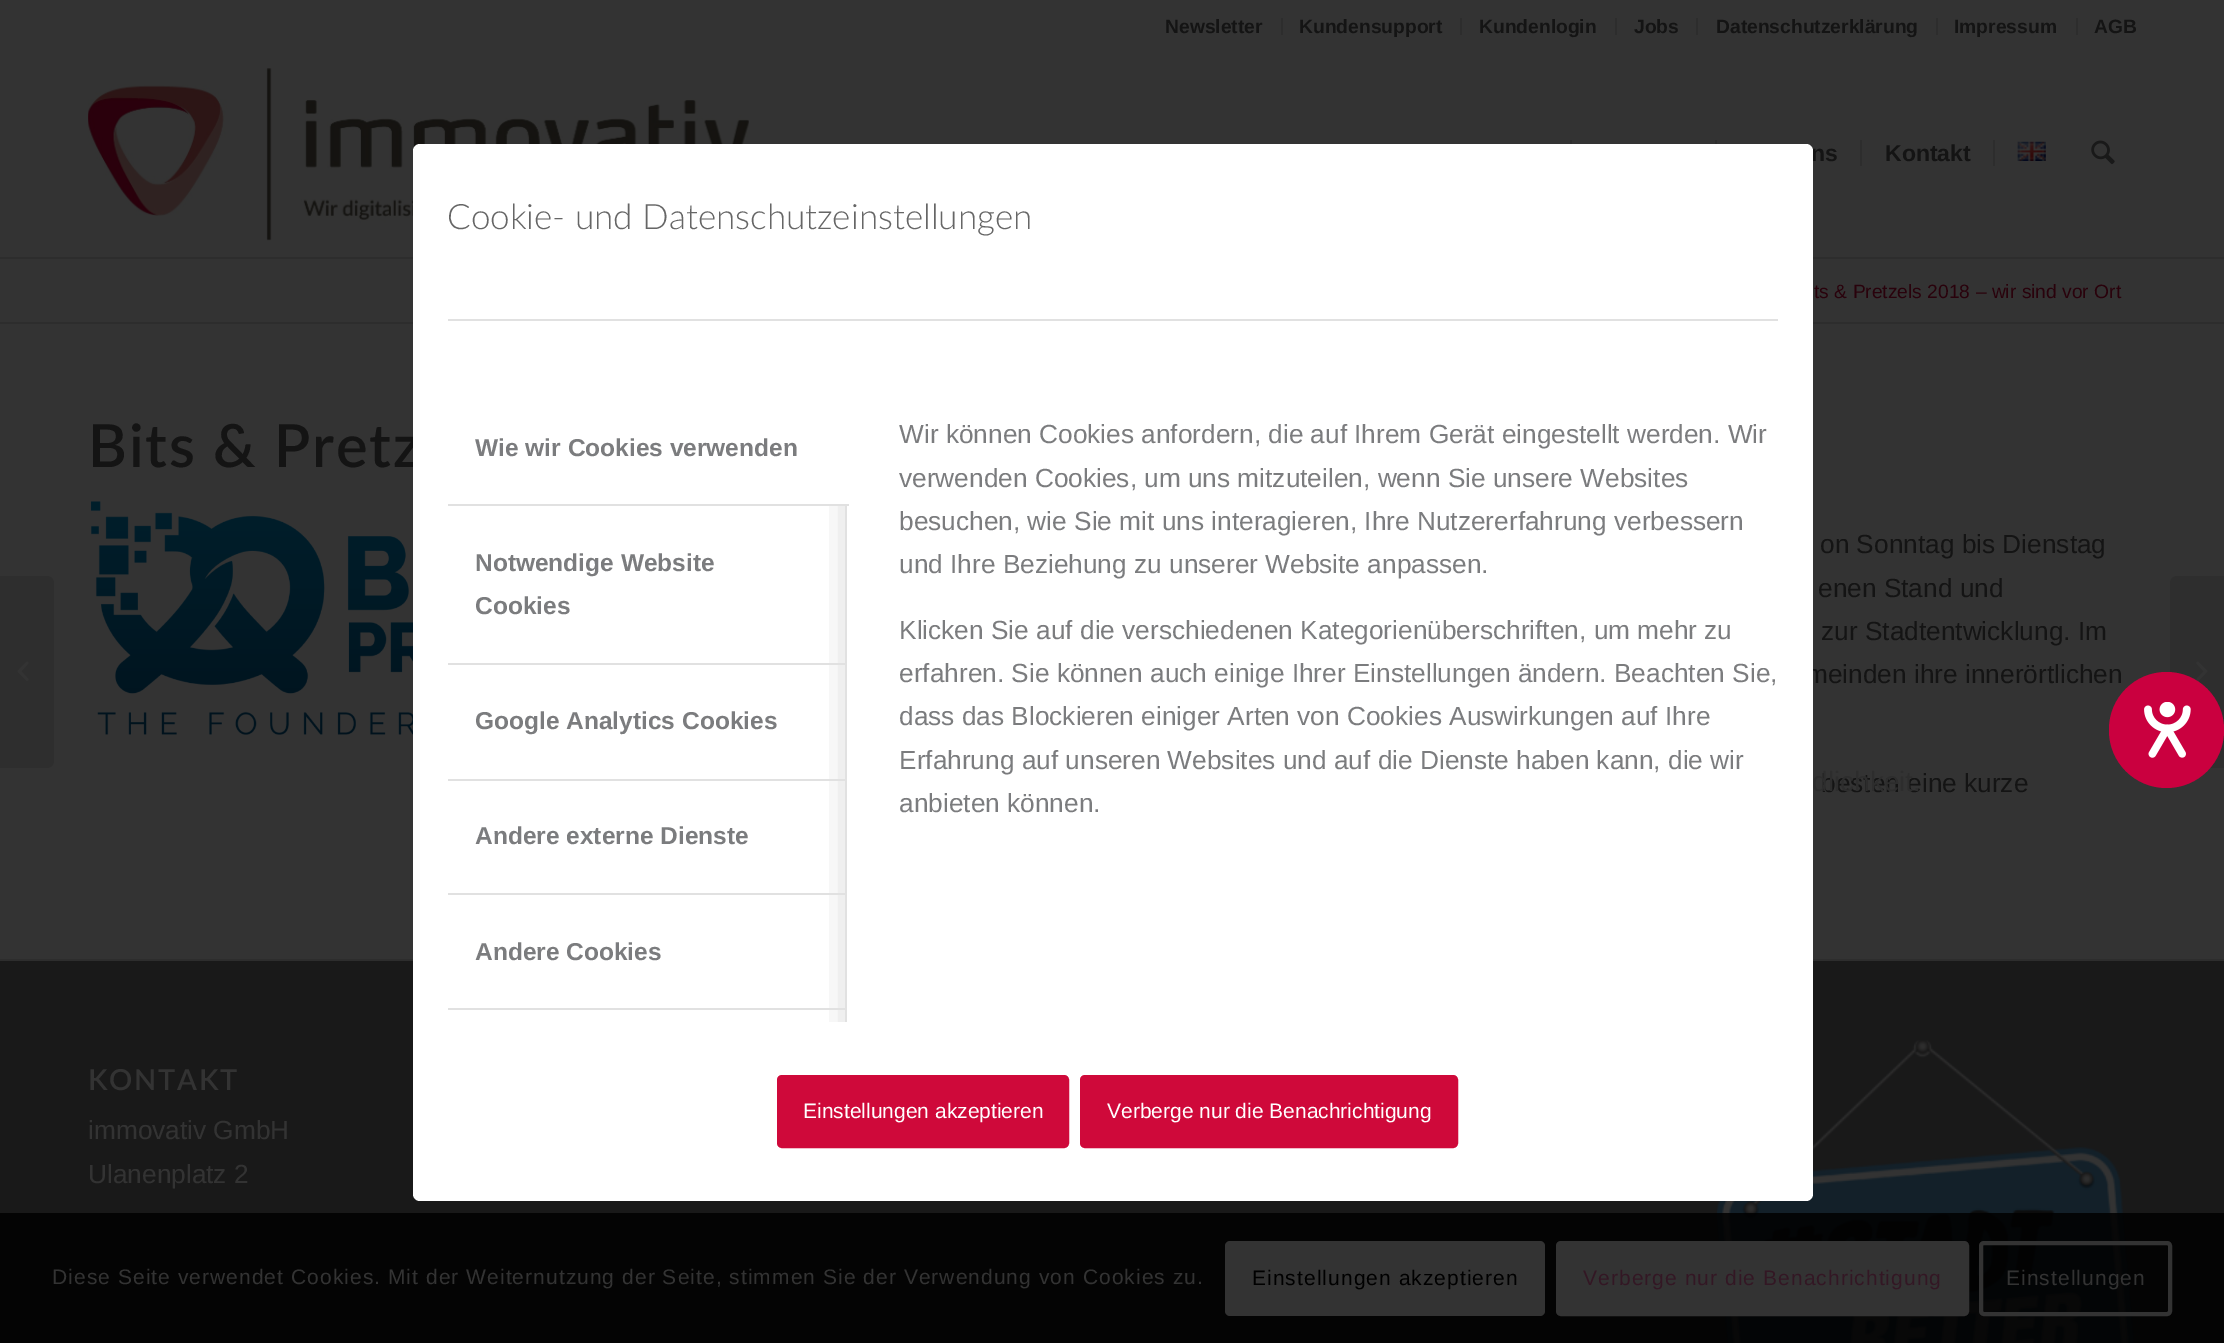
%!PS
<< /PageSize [2224 1343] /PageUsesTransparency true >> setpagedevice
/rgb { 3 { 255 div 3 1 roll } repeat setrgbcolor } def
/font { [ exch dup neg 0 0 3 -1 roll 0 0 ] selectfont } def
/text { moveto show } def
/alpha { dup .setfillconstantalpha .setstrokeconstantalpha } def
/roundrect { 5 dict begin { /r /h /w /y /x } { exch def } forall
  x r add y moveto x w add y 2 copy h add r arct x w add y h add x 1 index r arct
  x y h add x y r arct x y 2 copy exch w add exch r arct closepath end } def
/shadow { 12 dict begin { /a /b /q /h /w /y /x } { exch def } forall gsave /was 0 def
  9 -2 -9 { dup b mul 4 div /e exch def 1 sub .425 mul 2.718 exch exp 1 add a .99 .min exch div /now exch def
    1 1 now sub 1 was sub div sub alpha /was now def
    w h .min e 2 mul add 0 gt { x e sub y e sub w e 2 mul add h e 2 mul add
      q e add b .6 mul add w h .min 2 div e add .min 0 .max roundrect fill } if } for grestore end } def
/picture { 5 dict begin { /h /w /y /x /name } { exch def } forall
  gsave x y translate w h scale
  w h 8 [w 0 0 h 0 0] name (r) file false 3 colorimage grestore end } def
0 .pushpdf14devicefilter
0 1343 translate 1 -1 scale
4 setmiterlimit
51 51 51 rgb
0 0 2224 1343 rectfill
45 45 45 rgb
1281 18 2 17 rectfill
1460 18 2 17 rectfill
1615 18 2 17 rectfill
1696 18 2 17 rectfill
1936 18 2 17 rectfill
2076 18 2 17 rectfill
(img_01.rgb) 88 68 661 173 picture
1570 140 2 4 rectfill
1715 140 2 4 rectfill
1860 140 2 26 rectfill
1993 140 2 26 rectfill
(img_02.rgb) 2017 141 29 20 picture
(img_03.rgb) 2091 140 24 25 picture
46 46 46 rgb
0 576 moveto 47 0 rlineto 4 0 7 3 7 7 rcurveto 0 178 rlineto 0 4 -3 7 -7 7 rcurveto -47 0 rlineto closepath fill
(img_04.rgb) 17 661 12 20 picture
45 45 45 rgb
0 257 2224 2 rectfill
0 322 2224 2 rectfill
(img_05.rgb) 90 501 323 234 picture
25 25 25 rgb
0 961 2224 382 rectfill
45 45 45 rgb
0 959 2224 2 rectfill
(img_06.rgb) 1716 1040 419 303 picture
46 46 46 rgb
2177 576 moveto 47 0 rlineto 0 192 rlineto -47 0 rlineto -4 0 -7 -3 -7 -7 rcurveto 0 -178 rlineto 0 -4 3 -7 7 -7 rcurveto closepath fill
(img_07.rgb) 2196 661 12 20 picture
0.85 alpha
0 0 0 rgb
0 1213 2224 130 rectfill
1 alpha
51 51 51 rgb
1225 1241 320 75 5 roundrect fill
1558 1243 409 71 3 roundrect gsave fill grestore
4 setlinewidth
stroke
1981 1243 189 71 3 roundrect stroke
/LiberationSans-Bold 19.25 font
20 20 20 rgb
(Newsletter) 1165 33 text
(Kundensupport) 1299 33 text
(Kundenlogin) 1479 33 text
(Jobs) 1634 33 text
(Datenschutzerklärung) 1716 33 text
(Impressum) 1954 33 text
(AGB) 2094 33 text
/LiberationSans-Bold 23 font
(ns) 1811 161 text
(Kontakt) 1885 161 text
/LiberationSans-Regular 19.25 font
41 2 12 rgb
(ts & Pretzels 2018 – wir sind vor Ort) 1814 298 text
/Lato-SemiBold 59.5 font
20 20 20 rgb
88 467 moveto 1.75 0 (Bits & Pretz) ashow
/LiberationSans-Regular 26.25 font
(on Sonntag bis Dienstag) 1820 553 text
(enen Stand und) 1818 597 text
(zur Stadtentwicklung. Im) 1821 640 text
(meinden ihre innerörtlichen) 1806 683 text
(besten eine kurze) 1821 792 text
/Lato-SemiBold 29 font
51 51 51 rgb
88 1090 moveto 1.75 0 (KONTAKT) ashow
/LiberationSans-Regular 26.25 font
(immovativ GmbH) 88 1139 text
(Ulanenplatz 2) 88 1183 text
255 255 255 rgb
413 144 1400 1057 7 roundrect fill
/Lato-Light 35 font
102 102 102 rgb
(Cookie- und Datenschutzeinstellungen) 447 229 text
225 225 225 rgb
448 319 1330 2 rectfill
/LiberationSans-Bold 24.5 font
123 124 126 rgb
(Notwendige Website) 475 571 text
(Cookies) 475 614 text
(Google Analytics Cookies) 475 729 text
(Andere externe Dienste) 475 844 text
(Andere Cookies) 475 960 text
207 9 58 rgb
779 1077 288 69 3 roundrect gsave fill grestore
stroke
/LiberationSans-Regular 21 font
255 255 255 rgb
(Einstellungen akzeptieren) 803 1118 text
207 9 58 rgb
1082 1077 374 69 3 roundrect gsave fill grestore
stroke
gsave
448 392 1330 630 rectclip
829 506 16 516 rectclip
0 0 0 rgb
851 410 896 652 0 17.5 0.2 shadow
grestore
225 225 225 rgb
845 504 2 161 rectfill
255 255 255 rgb
452 392 moveto 397 0 rlineto 0 114 rlineto -401 0 rlineto 0 -110 rlineto 0 -2 2 -4 4 -4 rcurveto closepath fill
/LiberationSans-Bold 24.5 font
123 124 126 rgb
(Wie wir Cookies verwenden) 475 456 text
225 225 225 rgb
448 504 401 2 rectfill
448 663 399 2 rectfill
845 663 2 118 rectfill
448 779 399 2 rectfill
845 779 2 115 rectfill
448 893 399 2 rectfill
845 893 2 117 rectfill
448 1008 399 2 rectfill
845 1008 2 14 rectfill
/LiberationSans-Regular 26.25 font
123 124 126 rgb
(anbieten können.) 899 812 text
(Erfahrung auf unseren Websites und auf die Dienste haben kann, die wir) 899 769 text
(dass das Blockieren einiger Arten von Cookies Auswirkungen auf Ihre) 899 725 text
(erfahren. Sie können auch einige Ihrer Einstellungen ändern. Beachten Sie,) 899 682 text
(Klicken Sie auf die verschiedenen Kategorienüberschriften, um mehr zu) 899 639 text
(und Ihre Beziehung zu unserer Website anpassen.) 899 573 text
(besuchen, wie Sie mit uns interagieren, Ihre Nutzererfahrung verbessern) 899 530 text
(verwenden Cookies, um uns mitzuteilen, wenn Sie unsere Websites) 899 487 text
(Wir können Cookies anfordern, die auf Ihrem Gerät eingestellt werden. Wir) 899 443 text
/LiberationSans-Regular 21 font
255 255 255 rgb
(Verberge nur die Benachrichtigung) 1107 1118 text
/LiberationSans-Regular 28 font
45 45 45 rgb
(dlichkeit.) 1812 791 text
202 0 63 rgb
2109 672 115 116 57.5 roundrect fill
(img_08.rgb) 2144 702 47 56 picture
/LiberationSans-Regular 21 font
51 51 51 rgb
52 1284 moveto 1.05 0 (Diese Seite verwendet Cookies. Mit der Weiternutzung der Seite, stimmen Sie der Verwendung von Cookies zu.) ashow
0 0 0 rgb
1252 1285 moveto 1.05 0 (Einstellungen akzeptieren) ashow
51 23 36 rgb
1583 1285 moveto 1.05 0 (Verberge nur die Benachrichtigung) ashow
51 51 51 rgb
2006 1285 moveto 1.05 0 (Einstellungen) ashow
.poppdf14devicefilter showpage
